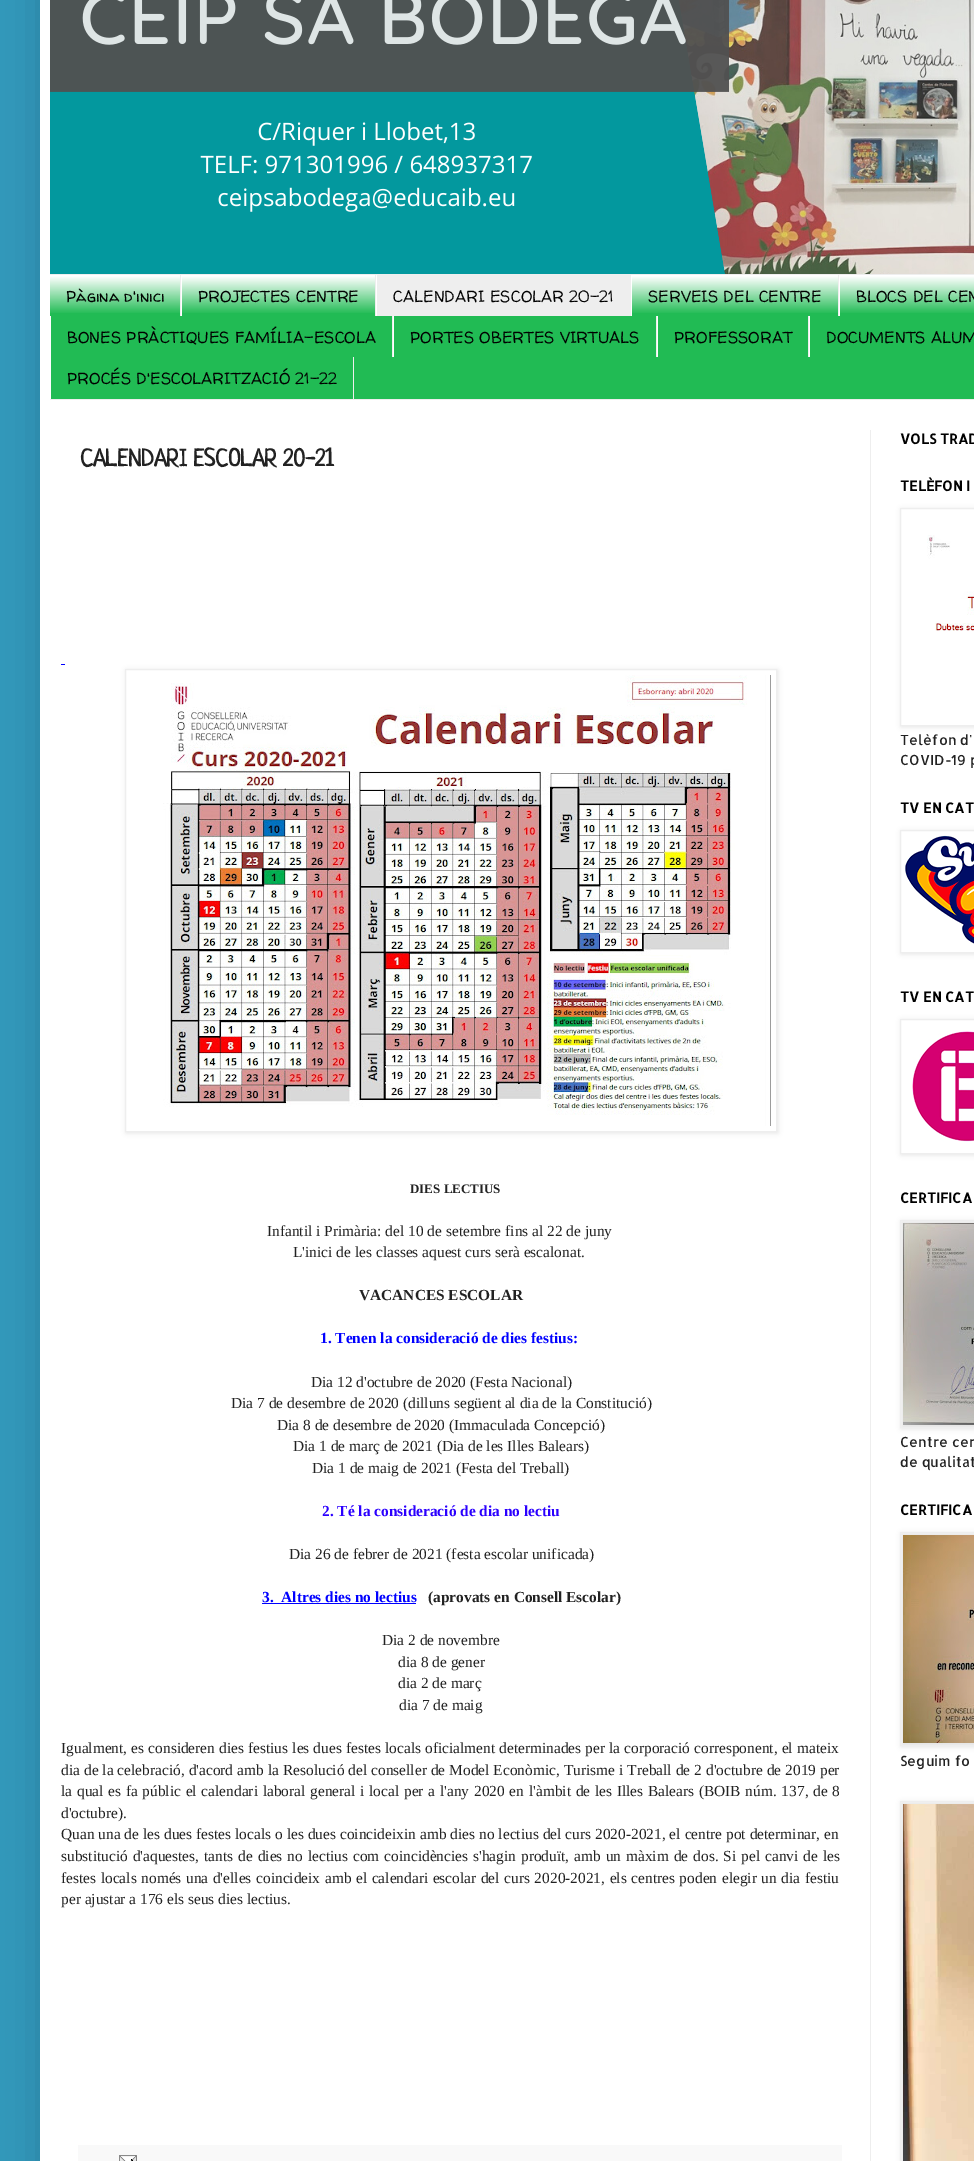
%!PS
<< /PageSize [974 2161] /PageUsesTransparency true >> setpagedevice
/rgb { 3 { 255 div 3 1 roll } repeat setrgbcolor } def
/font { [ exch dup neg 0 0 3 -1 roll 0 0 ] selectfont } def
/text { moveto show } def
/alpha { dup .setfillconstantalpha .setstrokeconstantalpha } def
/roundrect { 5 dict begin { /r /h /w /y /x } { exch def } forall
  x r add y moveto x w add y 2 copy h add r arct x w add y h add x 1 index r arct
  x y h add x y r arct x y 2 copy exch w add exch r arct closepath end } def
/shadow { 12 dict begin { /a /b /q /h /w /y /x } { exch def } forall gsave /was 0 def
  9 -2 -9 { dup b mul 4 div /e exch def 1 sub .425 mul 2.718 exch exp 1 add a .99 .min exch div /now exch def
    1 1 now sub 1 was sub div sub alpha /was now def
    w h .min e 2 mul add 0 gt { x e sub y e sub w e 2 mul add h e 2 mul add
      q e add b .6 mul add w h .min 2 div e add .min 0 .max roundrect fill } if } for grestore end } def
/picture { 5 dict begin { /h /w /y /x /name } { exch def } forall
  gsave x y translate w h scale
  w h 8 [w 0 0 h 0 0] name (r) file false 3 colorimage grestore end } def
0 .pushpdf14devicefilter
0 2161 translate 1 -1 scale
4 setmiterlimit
50 153 187 rgb
0 0 974 2161 rectfill
0 0 0 rgb
40 -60 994 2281 0 20 0.15 shadow
255 255 255 rgb
40 0 934 2161 rectfill
(img_01.rgb) 50 0 924 274 picture
33 187 84 rgb
50 276 924 123 rectfill
(img_02.rgb) 50 275 924 38 picture
238 238 238 rgb
50 274 924 1 rectfill
50 399 924 1 rectfill
180 275 1 41 rectfill
375 275 1 41 rectfill
255 255 255 rgb
181 275 1 41 rectfill
238 238 238 rgb
377 275 254 41 rectfill
255 255 255 rgb
376 275 1 41 rectfill
238 238 238 rgb
838 275 1 41 rectfill
255 255 255 rgb
631 275 1 41 rectfill
839 275 1 41 rectfill
238 238 238 rgb
392 316 1 41 rectfill
255 255 255 rgb
50 316 1 83 rectfill
238 238 238 rgb
656 316 1 41 rectfill
255 255 255 rgb
393 316 1 41 rectfill
238 238 238 rgb
808 316 1 41 rectfill
255 255 255 rgb
657 316 1 41 rectfill
809 316 1 41 rectfill
238 238 238 rgb
353 357 1 42 rectfill
870 430 1 1731 rectfill
0 0 255 rgb
61 664 4 1 rectfill
gsave
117 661 moveto 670 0 rlineto 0 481 rlineto -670 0 rlineto closepath 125 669 moveto 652 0 rlineto 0 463 rlineto -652 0 rlineto closepath eoclip newpath
0 0 0 rgb
126 670 652 463 0 2.5 0.1 shadow
grestore
238 238 238 rgb
125.5 669.5 651 462 rectstroke
(img_03.rgb) 163 675 608 451 picture
0 0 255 rgb
262 1603 154 1 rectfill
249 249 249 rgb
78 2145 764 16 rectfill
(img_04.rgb) 119 2155 18 6 picture
gsave
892 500 moveto 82 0 rlineto 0 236 rlineto -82 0 rlineto closepath 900 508 moveto 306 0 rlineto 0 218 rlineto -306 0 rlineto closepath eoclip newpath
0 0 0 rgb
901 509 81 218 0 2.5 0.1 shadow
grestore
238 238 238 rgb
900.5 508.5 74 217 rectstroke
(img_05.rgb) 927 535 47 96 picture
gsave
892 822 moveto 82 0 rlineto 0 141 rlineto -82 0 rlineto closepath 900 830 moveto 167 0 rlineto 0 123 rlineto -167 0 rlineto closepath eoclip newpath
0 0 0 rgb
901 831 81 123 0 2.5 0.1 shadow
grestore
900.5 830.5 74 122 rectstroke
(img_06.rgb) 905 835 69 109 picture
gsave
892 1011 moveto 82 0 rlineto 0 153 rlineto -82 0 rlineto closepath 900 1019 moveto 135 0 rlineto 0 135 rlineto -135 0 rlineto closepath eoclip newpath
0 0 0 rgb
901 1020 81 135 0 2.5 0.1 shadow
grestore
900.5 1019.5 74 134 rectstroke
(img_07.rgb) 912 1031 62 111 picture
0 0 0 rgb
901 1221 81 208 0 2.5 0.1 shadow
238 238 238 rgb
900.5 1220.5 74 207 rectstroke
(img_08.rgb) 903 1223 71 202 picture
0 0 0 rgb
901 1533 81 214 0 2.5 0.1 shadow
238 238 238 rgb
900.5 1532.5 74 213 rectstroke
(img_09.rgb) 903 1535 71 208 picture
0 0 0 rgb
901 1802 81 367 0 2.5 0.1 shadow
238 238 238 rgb
900.5 1801.5 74 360 rectstroke
(img_10.rgb) 903 1804 71 357 picture
/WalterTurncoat-Regular 16 font
0 0 0 rgb
(Pàgina d'inici) 66 302 text
(PROJECTES CENTRE) 198 302 text
(CALENDARI ESCOLAR 20-21) 393 302 text
(SERVEIS DEL CENTRE) 648 302 text
(BLOCS DEL CEN) 856 302 text
(BONES PRÀCTIQUES FAMÍLIA-ESCOLA) 67 343 text
(PORTES OBERTES VIRTUALS) 410 343 text
(PROFESSORAT) 674 343 text
(DOCUMENTS ALUM) 826 343 text
(PROCÉS D'ESCOLARITZACIÓ 21-22) 67 384 text
/Neucha-Bold 24 font
34 34 34 rgb
(CALENDARI ESCOLAR 20-21) 80 466 text
/LiberationSerif-Bold 13 font
(DIES LECTIUS) 410 1193 text
/LiberationSerif-Regular 15.4 font
(Infantil i Primària: del 10 de setembre fins al 22 de juny) 267 1236 text
(L'inici de les classes aquest curs serà escalonat.) 293 1257 text
/LiberationSerif-Bold 15.4 font
(VACANCES ESCOLAR) 359 1300 text
0 0 255 rgb
(1. Tenen la consideració de dies festius:) 320 1343 text
/LiberationSerif-Regular 15.4 font
34 34 34 rgb
(Dia 12 d'octubre de 2020 \(Festa Nacional\)) 311 1387 text
(Dia 7 de desembre de 2020 \(dilluns següent al dia de la Constitució\)) 231 1408 text
(Dia 8 de desembre de 2020 \(Immaculada Concepció\)) 277 1430 text
(Dia 1 de març de 2021 \(Dia de les Illes Balears\)) 293 1451 text
(Dia 1 de maig de 2021 \(Festa del Treball\)) 312 1473 text
/LiberationSerif-Bold 15.4 font
43 0 254 rgb
(2. Té la consideració de dia no lectiu) 322 1516 text
/LiberationSerif-Regular 15.4 font
34 34 34 rgb
(Dia 26 de febrer de 2021 \(festa escolar unificada\)) 289 1559 text
/LiberationSerif-Bold 15.4 font
0 0 255 rgb
(3.  Altres dies no lectius) 262 1602 text
34 34 34 rgb
(\(aprovats en Consell Escolar\)) 428 1602 text
/LiberationSerif-Regular 15.4 font
(Dia 2 de novembre) 382 1645 text
(dia 8 de gener) 398 1667 text
(dia 2 de març) 398 1688 text
(dia 7 de maig) 399 1710 text
61 1753 moveto 0.25 0 32 (Igualment, es consideren dies festius les dues festes locals oficialment determinades per la corporació corresponent, el mateix) widthshow
61 1775 moveto 0.15 0 32 (dia de la celebració, d'acord amb la Resolució del conseller de Model Econòmic, Turisme i Treball de 2 d'octubre de 2019 per) widthshow
61 1796 moveto 0.9 0 32 (la qual es fa públic el calendari laboral general i local per a l'any 2020 en l'àmbit de les Illes Balears \(BOIB núm. 137, de 8) widthshow
(d'octubre\).) 61 1818 text
61 1839 moveto 0.1 0 32 (Quan una de les dues festes locals o les dues coincideixin amb dies no lectius del curs 2020-2021, el centre pot determinar, en) widthshow
61 1861 moveto 1.1 0 32 (substitució d'aquestes, tants de dies no lectius com coincidències s'hagin produït, amb un màxim de dos. Si pel canvi de les) widthshow
61 1883 moveto 0.75 0 32 (festes locals només una d'elles coincideix amb el calendari escolar del curs 2020-2021, els centres poden elegir un dia festiu) widthshow
(per ajustar a 176 els seus dies lectius.) 61 1904 text
/Allerta-Bold 14 font
0 0 0 rgb
(VOLS TRAD) 900 444 text
(TELÈFON I) 900 491 text
/Allerta-Regular 14 font
34 34 34 rgb
(Telèfon d') 900 745 text
(COVID-19 p) 900 765 text
/Allerta-Bold 14 font
0 0 0 rgb
(TV EN CAT) 900 813 text
(TV EN CAT) 900 1002 text
(CERTIFICA) 900 1203 text
/Allerta-Regular 14 font
34 34 34 rgb
(Centre cer) 900 1447 text
(de qualitat) 900 1467 text
/Allerta-Bold 14 font
0 0 0 rgb
(CERTIFICA) 900 1515 text
/Allerta-Regular 14 font
34 34 34 rgb
(Seguim fo) 900 1766 text
.poppdf14devicefilter showpage
